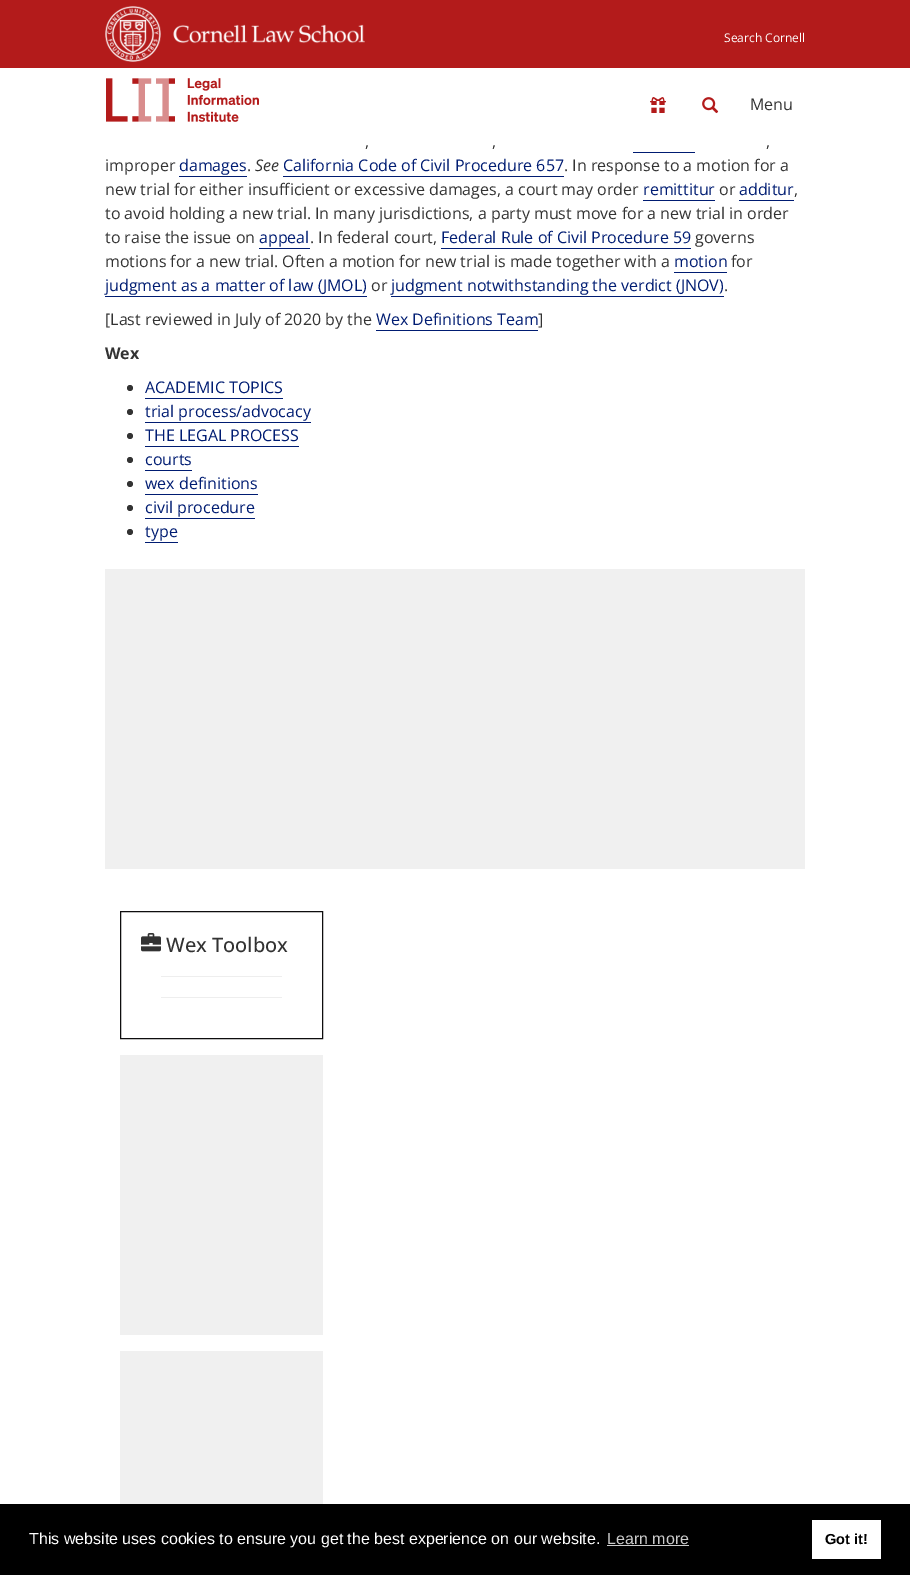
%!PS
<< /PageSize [910 1575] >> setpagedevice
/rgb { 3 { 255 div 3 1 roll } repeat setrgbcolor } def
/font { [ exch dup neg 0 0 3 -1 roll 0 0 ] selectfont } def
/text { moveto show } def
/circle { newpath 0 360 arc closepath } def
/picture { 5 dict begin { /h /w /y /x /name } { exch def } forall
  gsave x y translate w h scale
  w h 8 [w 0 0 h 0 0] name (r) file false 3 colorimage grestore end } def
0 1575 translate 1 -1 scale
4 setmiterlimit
255 255 255 rgb
0 0 910 1575 rectfill
179 27 27 rgb
0 0 910 68 rectfill
(img_01.rgb) 105 6 56 56 picture
(img_02.rgb) 173 24 192 20 picture
(img_03.rgb) 106 78 153 44 picture
(img_04.rgb) 650 97 16 16 picture
(img_05.rgb) 702 97 17 17 picture
0 28 114 rgb
633 152 62 1 rectfill
179 176 68 1 rectfill
283 176 281 1 rectfill
643 200 72 1 rectfill
739 200 55 1 rectfill
259 248 51 1 rectfill
441 248 250 1 rectfill
674 272 53 1 rectfill
105 296 262 1 rectfill
391 296 333 1 rectfill
376 330 162 1 rectfill
51 51 51 rgb
130 388 3 circle fill
0 28 114 rgb
145 398 138 1 rectfill
51 51 51 rgb
130 412 3 circle fill
0 28 114 rgb
145 422 166 1 rectfill
51 51 51 rgb
130 436 3 circle fill
0 28 114 rgb
145 446 154 1 rectfill
51 51 51 rgb
130 460 3 circle fill
0 28 114 rgb
145 470 47 1 rectfill
51 51 51 rgb
130 484 3 circle fill
0 28 114 rgb
145 494 113 1 rectfill
51 51 51 rgb
130 508 3 circle fill
0 28 114 rgb
145 518 110 1 rectfill
51 51 51 rgb
130 532 3 circle fill
0 28 114 rgb
145 542 33 1 rectfill
240 240 240 rgb
105 569 700 300 rectfill
14 13 14 rgb
120.5 911.5 202 127 rectstroke
(img_06.rgb) 141 933 20 19 picture
238 238 238 rgb
161 976 121 1 rectfill
161 997 121 1 rectfill
240 240 240 rgb
120 1055 203 280 rectfill
120 1351 203 153 rectfill
0 0 0 rgb
0 1504 910 71 rectfill
204 204 204 rgb
607 1545 82 1 rectfill
255 255 255 rgb
812 1520 69 39 rectfill
/OpenSans-Regular 12 font
(Search Cornell) 724 42 text
/OpenSans-Regular 16 font
51 51 51 rgb
(Menu) 750 110 text
(,) 365 147 text
(,) 492 147 text
(,) 766 147 text
(improper) 105 171 text
0 28 114 rgb
(damages) 179 171 text
51 51 51 rgb
(.) 247 171 text
/OpenSans-Italic 16 font
(See) 255 171 text
/OpenSans-Regular 16 font
0 28 114 rgb
(California Code of Civil Procedure 657) 283 171 text
51 51 51 rgb
(. In response to a motion for a) 564 171 text
(new trial for either insufficient or excessive damages, a court may order) 105 195 text
0 28 114 rgb
(remittitur) 643 195 text
51 51 51 rgb
(or) 719 195 text
0 28 114 rgb
(additur) 739 195 text
51 51 51 rgb
(,) 794 195 text
(to avoid holding a new trial. In many jurisdictions, a party must move for a new trial in order) 105 219 text
(to raise the issue on) 105 243 text
0 28 114 rgb
(appeal) 259 243 text
51 51 51 rgb
(. In federal court,) 310 243 text
0 28 114 rgb
(Federal Rule of Civil Procedure 59) 441 243 text
51 51 51 rgb
(governs) 695 243 text
(motions for a new trial. Often a motion for new trial is made together with a) 105 267 text
0 28 114 rgb
(motion) 674 267 text
51 51 51 rgb
(for) 731 267 text
0 28 114 rgb
(judgment as a matter of law \(JMOL\)) 105 291 text
51 51 51 rgb
(or) 371 291 text
0 28 114 rgb
(judgment notwithstanding the verdict \(JNOV\)) 391 291 text
51 51 51 rgb
(.) 724 291 text
([Last reviewed in July of 2020 by the) 105 325 text
0 28 114 rgb
(Wex Definitions Team) 376 325 text
51 51 51 rgb
(]) 538 325 text
/OpenSans-Bold 16 font
(Wex) 105 359 text
/OpenSans-Regular 16 font
0 28 114 rgb
(ACADEMIC TOPICS) 145 393 text
(trial process/advocacy) 145 417 text
(THE LEGAL PROCESS) 145 441 text
(courts) 145 465 text
(wex definitions) 145 489 text
(civil procedure) 145 513 text
(type) 145 537 text
/OpenSans-Medium 20 font
51 51 51 rgb
(Wex Toolbox) 166 952 text
/LiberationSans-Regular 16 font
255 255 255 rgb
(This website uses cookies to ensure you get the best experience on our website.) 29 1544 text
204 204 204 rgb
(Learn more) 607 1544 text
/LiberationSans-Bold 14.5 font
0 0 0 rgb
(Got it!) 825 1544 text
showpage
